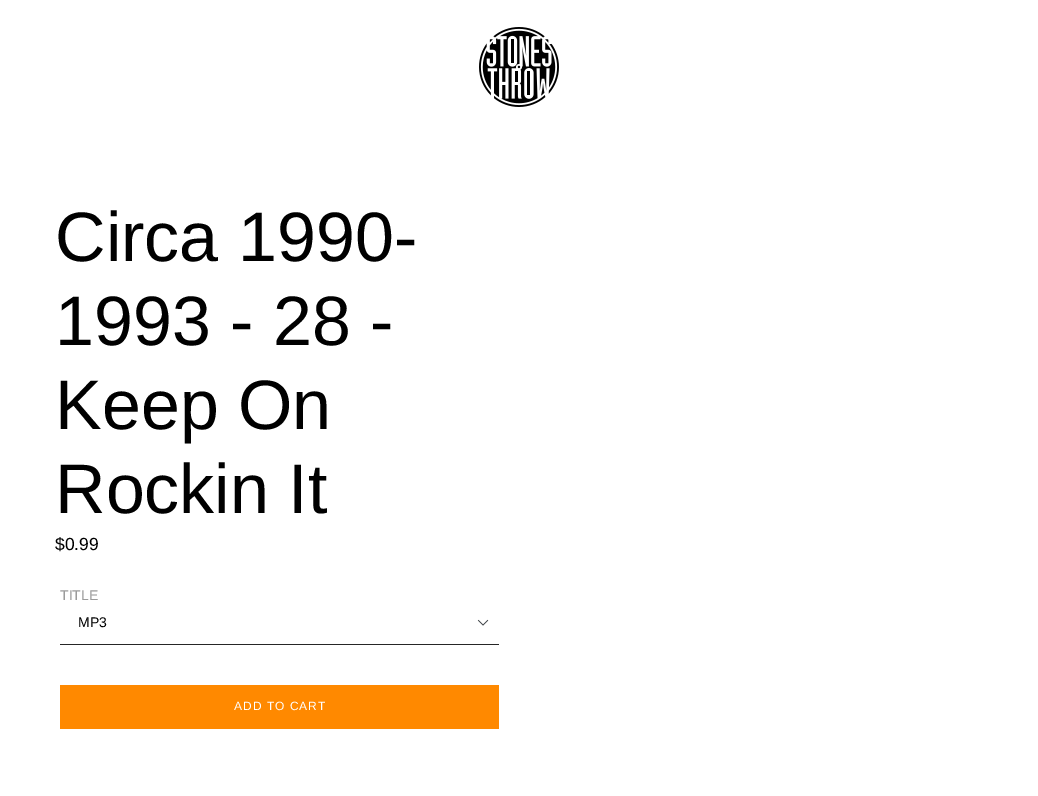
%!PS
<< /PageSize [1038 796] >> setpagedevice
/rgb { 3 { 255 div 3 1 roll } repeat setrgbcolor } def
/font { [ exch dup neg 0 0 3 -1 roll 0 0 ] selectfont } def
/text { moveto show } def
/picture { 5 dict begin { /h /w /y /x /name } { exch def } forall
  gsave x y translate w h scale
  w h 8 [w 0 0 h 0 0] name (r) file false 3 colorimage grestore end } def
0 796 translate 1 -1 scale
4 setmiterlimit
255 255 255 rgb
0 0 1038 796 rectfill
(img_01.rgb) 479 27 80 80 picture
(img_02.rgb) 477 619 12 7 picture
38 38 38 rgb
60 644 439 1 rectfill
255 137 0 rgb
60 685 439 44 rectfill
/LiberationSans-Regular 70 font
0 0 0 rgb
(Circa 1990-) 55 261 text
(1993 - 28 -) 55 345 text
(Keep On) 55 429 text
(Rockin It) 55 513 text
/LiberationSans-Regular 17.5 font
($0.99) 55 550 text
/LiberationSans-Regular 14 font
155 155 155 rgb
(TITLE) 60 600 text
0 0 0 rgb
(MP3) 78 627 text
/LiberationSans-Regular 12 font
255 255 255 rgb
234 710 moveto 1 0 (ADD TO CART) ashow
showpage
